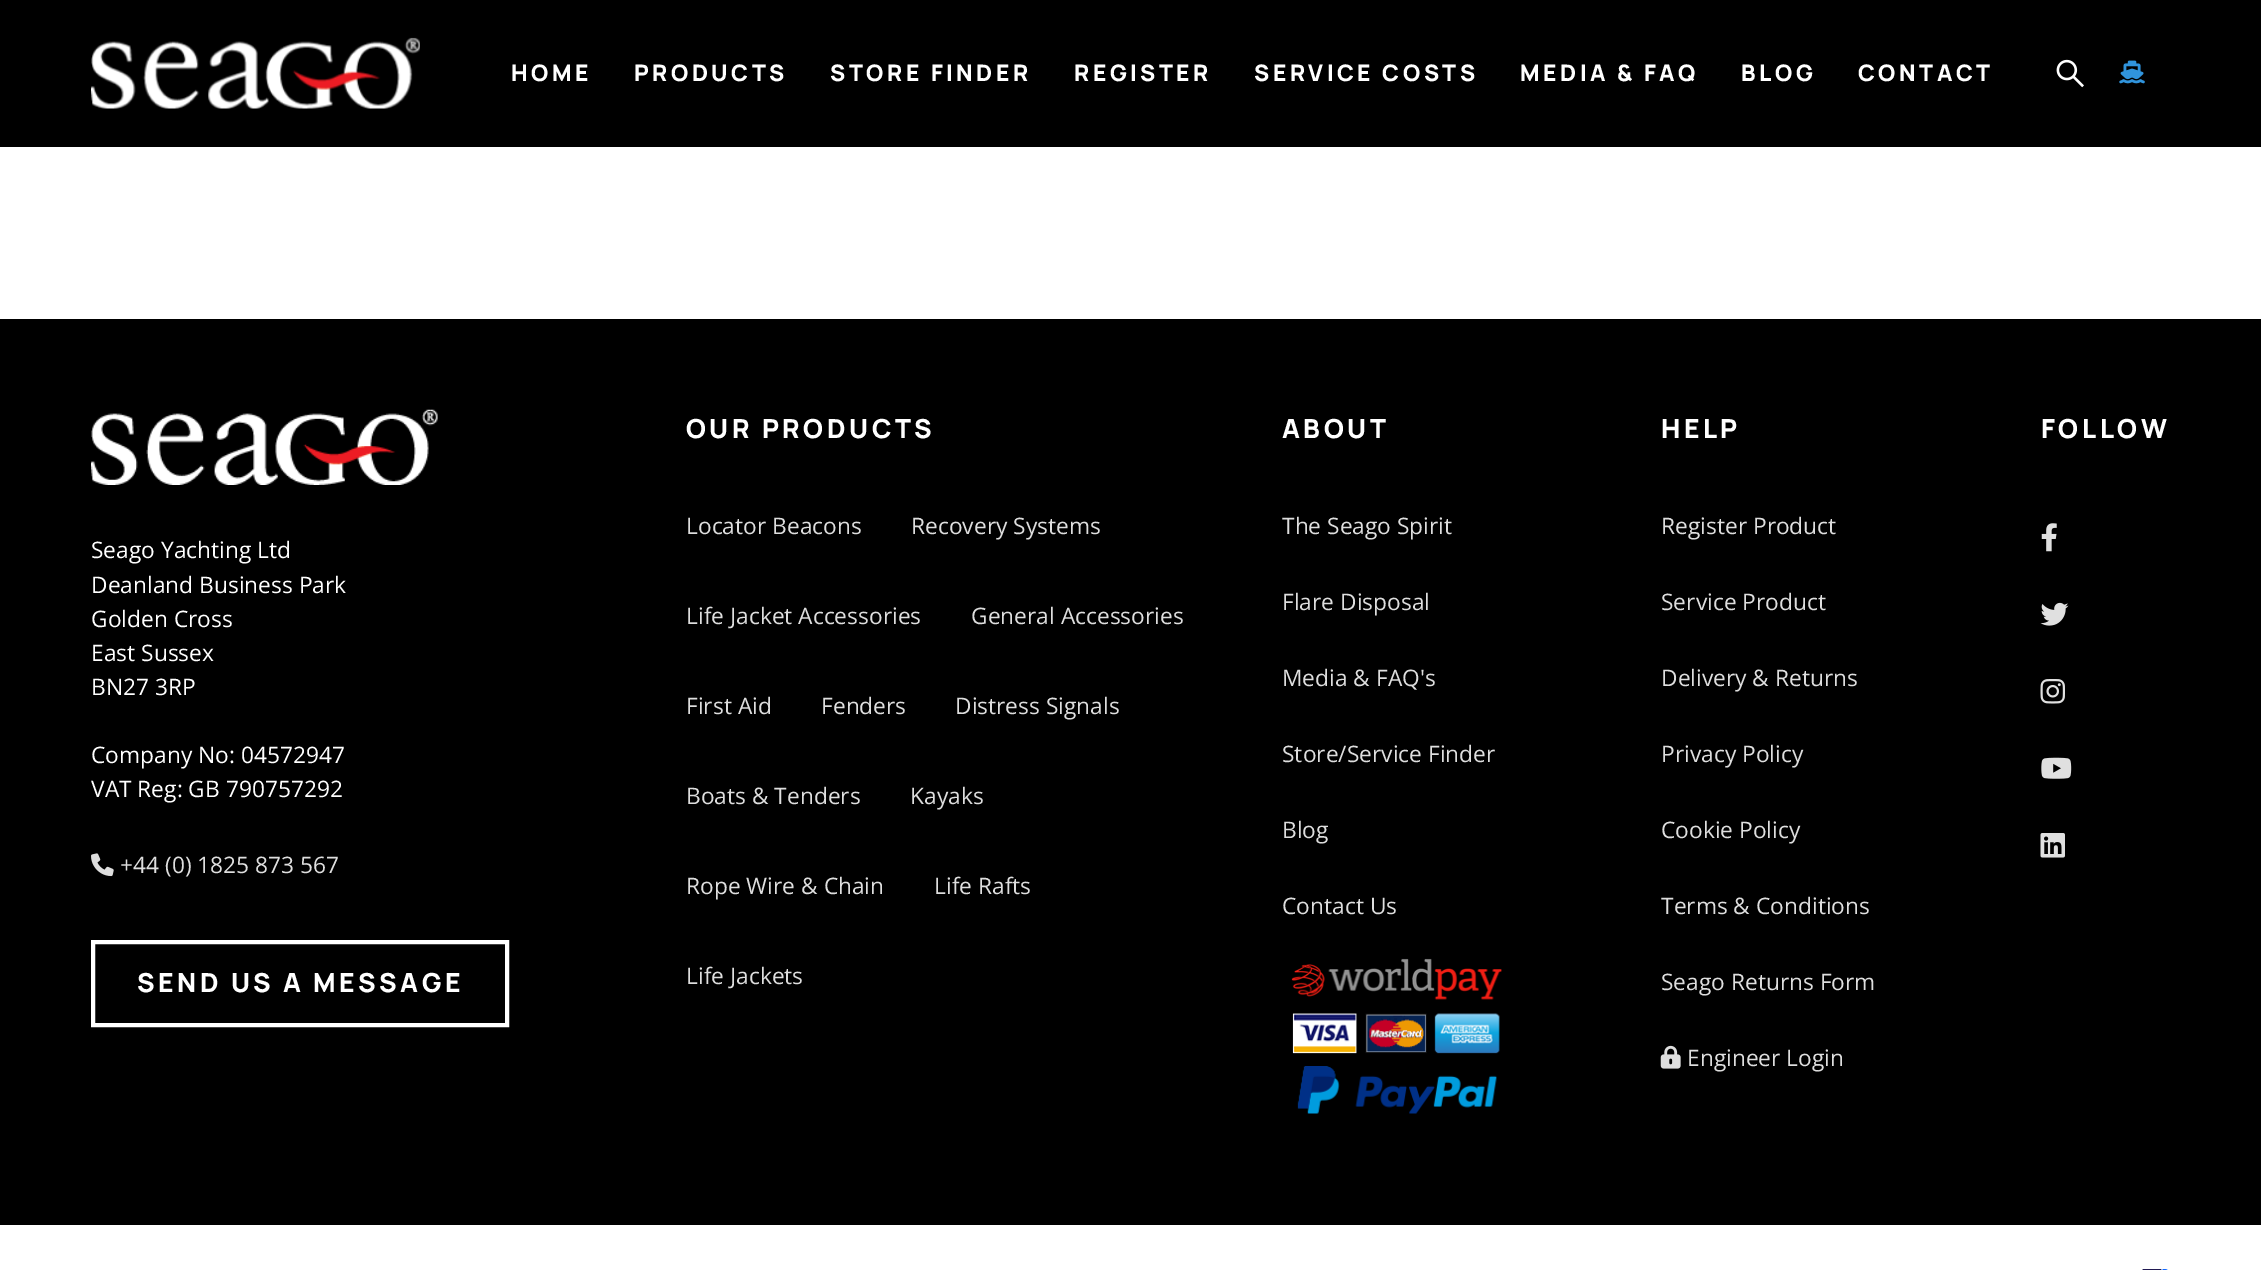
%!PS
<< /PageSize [2261 1270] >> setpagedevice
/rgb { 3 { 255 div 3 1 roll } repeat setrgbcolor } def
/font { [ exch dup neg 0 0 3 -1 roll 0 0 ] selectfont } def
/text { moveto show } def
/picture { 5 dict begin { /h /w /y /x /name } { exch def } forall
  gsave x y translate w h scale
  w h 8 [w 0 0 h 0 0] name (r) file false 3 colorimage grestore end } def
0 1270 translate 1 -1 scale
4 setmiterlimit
255 255 255 rgb
0 0 2261 1270 rectfill
0 0 0 rgb
0 0 2261 147 rectfill
(img_01.rgb) 91 37 329 72 picture
(img_02.rgb) 2056 59 28 29 picture
(img_03.rgb) 2119 60 26 24 picture
0 319 2261 906 rectfill
(img_04.rgb) 91 409 347 76 picture
(img_05.rgb) 91 853 23 24 picture
255 255 255 rgb
4 setlinewidth
93 942 414 83 rectstroke
(img_06.rgb) 1291 958 211 156 picture
(img_07.rgb) 1660 1045 21 24 picture
(img_08.rgb) 2041 523 16 29 picture
(img_09.rgb) 2040 602 29 24 picture
(img_10.rgb) 2040 679 25 25 picture
(img_11.rgb) 2041 757 31 22 picture
(img_12.rgb) 2040 833 25 25 picture
(img_13.rgb) 2142 1269 26 1 picture
/Manrope-ExtraBold 22.75 font
511 81 moveto 3.5 0 (HOME) ashow
634 81 moveto 3.5 0 (PRODUCTS) ashow
830 81 moveto 3.5 0 (STORE FINDER) ashow
1074 81 moveto 3.5 0 (REGISTER) ashow
1254 81 moveto 3.5 0 (SERVICE COSTS) ashow
1520 81 moveto 3.5 0 (MEDIA & FAQ) ashow
1741 81 moveto 3.5 0 (BLOG) ashow
1858 81 moveto 3.5 0 (CONTACT) ashow
/OpenSans-Regular 22.75 font
(Seago Yachting Ltd) 91 558 text
(Deanland Business Park) 91 593 text
(Golden Cross) 91 627 text
(East Sussex) 91 661 text
(BN27 3RP) 91 695 text
(Company No: 04572947) 91 763 text
(VAT Reg: GB 790757292) 91 797 text
222 222 222 rgb
(+44 \(0\) 1825 873 567) 120 873 text
/Manrope-ExtraBold 26.25 font
255 255 255 rgb
137 992 moveto 3.5 0 (SEND US A MESSAGE) ashow
686 438 moveto 3.5 0 (OUR PRODUCTS) ashow
/OpenSans-Regular 22.75 font
222 222 222 rgb
(Locator Beacons) 686 534 text
(Recovery Systems) 911 534 text
(Life Jacket Accessories) 686 624 text
(General Accessories) 971 624 text
(First Aid) 686 714 text
(Fenders) 821 714 text
(Distress Signals) 955 714 text
(Boats & Tenders) 686 804 text
(Kayaks) 910 804 text
(Rope Wire & Chain) 686 894 text
(Life Rafts) 934 894 text
(Life Jackets) 686 984 text
/Manrope-ExtraBold 26.25 font
255 255 255 rgb
1282 438 moveto 3.5 0 (ABOUT) ashow
/OpenSans-Regular 22.75 font
222 222 222 rgb
(The Seago Spirit) 1282 534 text
(Flare Disposal) 1282 610 text
(Media & FAQ's) 1282 686 text
(Store/Service Finder) 1282 762 text
(Blog) 1282 838 text
(Contact Us) 1282 914 text
/Manrope-ExtraBold 26.25 font
255 255 255 rgb
1661 438 moveto 3.5 0 (HELP) ashow
/OpenSans-Regular 22.75 font
222 222 222 rgb
(Register Product) 1661 534 text
(Service Product) 1661 610 text
(Delivery & Returns) 1661 686 text
(Privacy Policy) 1661 762 text
(Cookie Policy) 1661 838 text
(Terms & Conditions) 1661 914 text
(Seago Returns Form) 1661 990 text
(Engineer Login) 1687 1066 text
/Manrope-ExtraBold 26.25 font
255 255 255 rgb
2041 438 moveto 3.5 0 (FOLLOW) ashow
showpage
